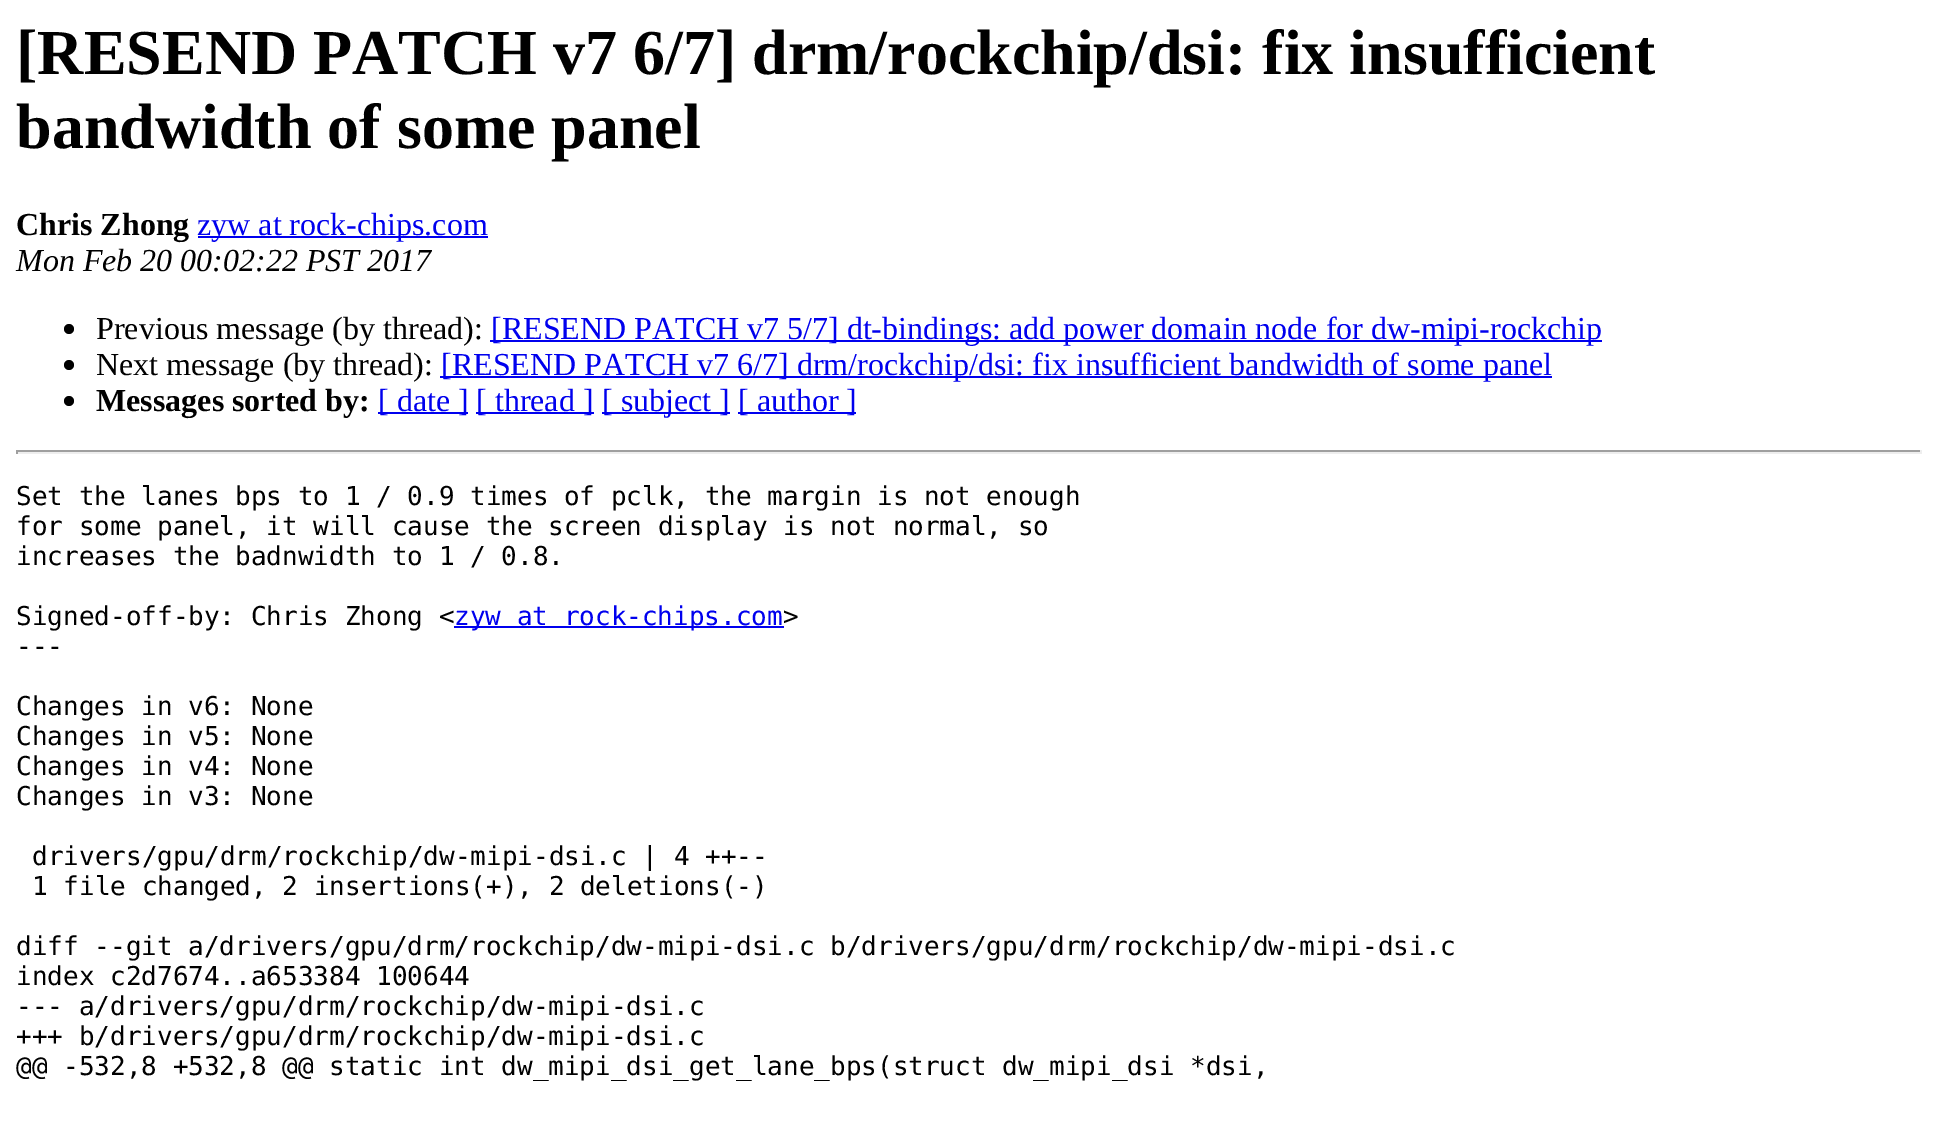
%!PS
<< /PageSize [1938 1127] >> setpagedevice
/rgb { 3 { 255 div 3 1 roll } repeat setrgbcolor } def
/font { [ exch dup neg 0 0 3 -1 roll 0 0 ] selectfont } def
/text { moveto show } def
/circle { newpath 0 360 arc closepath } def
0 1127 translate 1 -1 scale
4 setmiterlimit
255 255 255 rgb
0 0 1938 1127 rectfill
0 0 238 rgb
198 236 290 2 rectfill
0 0 0 rgb
69 329 5 circle fill
0 0 238 rgb
490 340 1112 2 rectfill
0 0 0 rgb
69 365 5 circle fill
0 0 238 rgb
440 376 1112 2 rectfill
0 0 0 rgb
69 401 5 circle fill
0 0 238 rgb
378 412 90 2 rectfill
476 412 118 2 rectfill
602 412 128 2 rectfill
738 412 118 2 rectfill
159 159 159 rgb
16 450 1906 2 rectfill
238 238 238 rgb
1920 450 2 4 rectfill
16 452 1906 2 rectfill
159 159 159 rgb
16 450 2 4 rectfill
0 0 238 rgb
454 626 330 2 rectfill
/LiberationSerif-Bold 64 font
0 0 0 rgb
([RESEND PATCH v7 6/7] drm/rockchip/dsi: fix insufficient) 16 74 text
(bandwidth of some panel) 16 148 text
/LiberationSerif-Bold 32 font
(Chris Zhong) 16 235 text
/LiberationSerif-Regular 32 font
0 0 238 rgb
(zyw at rock-chips.com) 197 235 text
/LiberationSerif-Italic 32 font
0 0 0 rgb
(Mon Feb 20 00:02:22 PST 2017) 16 271 text
/LiberationSerif-Regular 32 font
(Previous message \(by thread\):) 96 339 text
0 0 238 rgb
([RESEND PATCH v7 5/7] dt-bindings: add power domain node for dw-mipi-rockchip) 491 339 text
0 0 0 rgb
(Next message \(by thread\):) 96 375 text
0 0 238 rgb
([RESEND PATCH v7 6/7] drm/rockchip/dsi: fix insufficient bandwidth of some panel) 441 375 text
/LiberationSerif-Bold 32 font
0 0 0 rgb
(Messages sorted by:) 96 411 text
/LiberationSerif-Regular 32 font
0 0 238 rgb
([ date ]) 378 411 text
([ thread ]) 476 411 text
([ subject ]) 602 411 text
([ author ]) 738 411 text
/DejaVuSansMono-Regular 26 font
0 0 0 rgb
(Set the lanes bps to 1 / 0.9 times of pclk, the margin is not enough) 16 505 text
(for some panel, it will cause the screen display is not normal, so) 16 535 text
(increases the badnwidth to 1 / 0.8.) 16 565 text
(Signed-off-by: Chris Zhong <) 16 625 text
0 0 238 rgb
(zyw at rock-chips.com) 454 625 text
0 0 0 rgb
(>) 783 625 text
(---) 16 655 text
(Changes in v6: None) 16 715 text
(Changes in v5: None) 16 745 text
(Changes in v4: None) 16 775 text
(Changes in v3: None) 16 805 text
(drivers/gpu/drm/rockchip/dw-mipi-dsi.c | 4 ++--) 32 865 text
(1 file changed, 2 insertions\(+\), 2 deletions\(-\)) 32 895 text
(diff --git a/drivers/gpu/drm/rockchip/dw-mipi-dsi.c b/drivers/gpu/drm/rockchip/dw-mipi-dsi.c) 16 955 text
(index c2d7674..a653384 100644) 16 985 text
(--- a/drivers/gpu/drm/rockchip/dw-mipi-dsi.c) 16 1015 text
(+++ b/drivers/gpu/drm/rockchip/dw-mipi-dsi.c) 16 1045 text
(@@ -532,8 +532,8 @@ static int dw_mipi_dsi_get_lane_bps\(struct dw_mipi_dsi *dsi,) 16 1075 text
showpage
